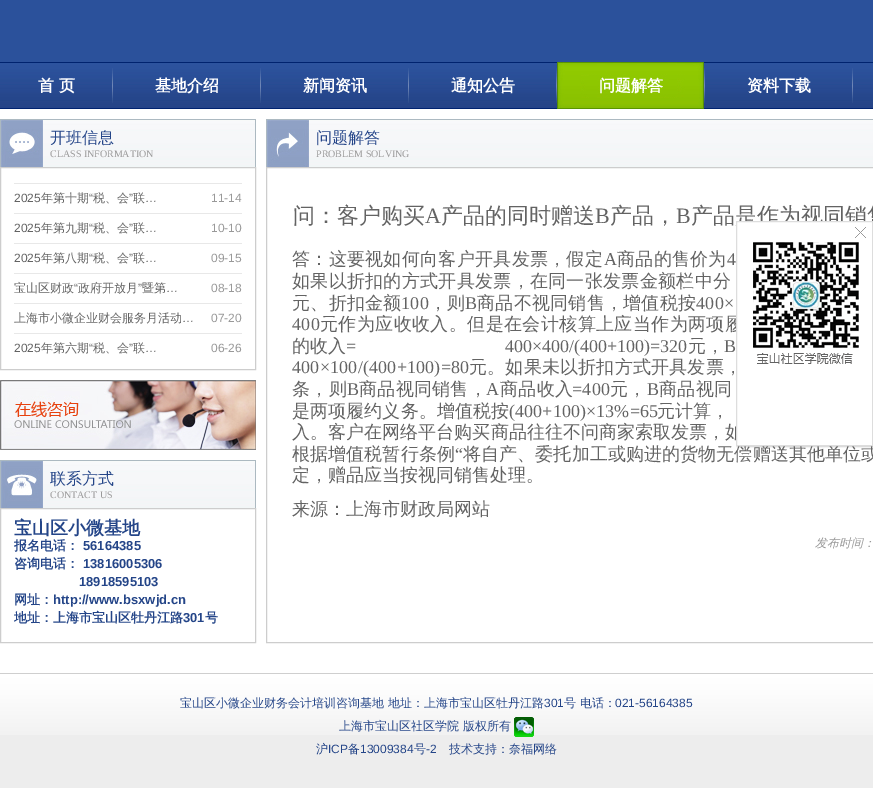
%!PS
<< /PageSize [873 788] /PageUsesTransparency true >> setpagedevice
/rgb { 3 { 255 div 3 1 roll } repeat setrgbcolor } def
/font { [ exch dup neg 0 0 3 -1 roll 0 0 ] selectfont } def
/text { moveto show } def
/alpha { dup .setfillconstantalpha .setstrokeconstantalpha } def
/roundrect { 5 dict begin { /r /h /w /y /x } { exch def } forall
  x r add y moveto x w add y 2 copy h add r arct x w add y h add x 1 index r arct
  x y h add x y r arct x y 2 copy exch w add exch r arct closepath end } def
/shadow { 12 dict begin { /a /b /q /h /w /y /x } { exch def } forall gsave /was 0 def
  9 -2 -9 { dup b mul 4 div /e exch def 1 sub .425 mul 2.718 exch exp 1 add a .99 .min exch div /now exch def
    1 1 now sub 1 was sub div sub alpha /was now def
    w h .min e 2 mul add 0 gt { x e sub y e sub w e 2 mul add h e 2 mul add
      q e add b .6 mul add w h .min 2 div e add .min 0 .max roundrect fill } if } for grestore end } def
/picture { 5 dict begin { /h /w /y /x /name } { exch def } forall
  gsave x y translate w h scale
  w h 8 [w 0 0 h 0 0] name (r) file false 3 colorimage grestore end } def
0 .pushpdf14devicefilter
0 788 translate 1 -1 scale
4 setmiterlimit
255 255 255 rgb
0 0 873 788 rectfill
43 81 155 rgb
0 0 873 62 rectfill
(img_01.rgb) 0 62 873 47 picture
(img_02.rgb) 112 68 1 35 picture
(img_02.rgb) 260 68 1 35 picture
(img_02.rgb) 408 68 1 35 picture
(img_02.rgb) 556 68 1 35 picture
(img_02.rgb) 704 68 1 35 picture
(img_03.rgb) 557 62 147 47 picture
(img_02.rgb) 852 68 1 35 picture
(img_04.rgb) 43 120 212 47 picture
172 185 193 rgb
0 119 256 1 rectfill
255 119 1 48 rectfill
0 119 1 48 rectfill
(img_05.rgb) 1 120 42 47 picture
205 205 205 rgb
0.5 167.5 255 202 rectstroke
232 232 232 rgb
14 183 228 1 rectfill
14 213 228 1 rectfill
14 243 228 1 rectfill
14 273 228 1 rectfill
14 303 228 1 rectfill
14 333 228 1 rectfill
(img_06.rgb) 0 380 256 70 picture
(img_04.rgb) 43 461 212 47 picture
172 185 193 rgb
0 460 256 1 rectfill
255 460 1 48 rectfill
0 460 1 48 rectfill
(img_07.rgb) 1 461 42 47 picture
205 205 205 rgb
0.5 508.5 255 134 rectstroke
(img_08.rgb) 309 120 564 47 picture
172 185 193 rgb
266 119 607 1 rectfill
266 119 1 48 rectfill
(img_09.rgb) 267 120 42 47 picture
205 205 205 rgb
266.5 167.5 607 475 rectstroke
212 212 212 rgb
737 222 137 225 0 0.5 1 shadow
237 237 237 rgb
0 735 873 53 rectfill
(img_12.rgb) 0 674 873 61 picture
207 207 207 rgb
0 673 873 1 rectfill
(img_13.rgb) 514 717 20 20 picture
/WenQuanYiZenHei-Bold 16 font
255 255 255 rgb
(首 页) 38 91 text
(基地介绍) 155 91 text
(新闻资讯) 303 91 text
(通知公告) 451 91 text
(问题解答) 599 91 text
(资料下载) 747 91 text
/WenQuanYiZenHei-Medium 16 font
36 69 136 rgb
(开班信息) 50 143 text
/LiberationSerif-Regular 10 font
153 153 153 rgb
(CLASS INFORMATION) 50 157 text
/LiberationSans-Regular 12 font
99 99 99 rgb
(2025) 14 202 text
/WenQuanYiZenHei-Medium 12 font
(年第十期) 41 202 text
/LiberationSans-Regular 12 font
(“) 89 202 text
/WenQuanYiZenHei-Medium 12 font
(税、会) 93 202 text
/LiberationSans-Regular 12 font
(”) 129 202 text
/WenQuanYiZenHei-Medium 12 font
(联) 133 202 text
/LiberationSans-Regular 12 font
(…) 145 202 text
153 153 153 rgb
(11-14) 211 202 text
99 99 99 rgb
(2025) 14 232 text
/WenQuanYiZenHei-Medium 12 font
(年第九期) 41 232 text
/LiberationSans-Regular 12 font
(“) 89 232 text
/WenQuanYiZenHei-Medium 12 font
(税、会) 93 232 text
/LiberationSans-Regular 12 font
(”) 129 232 text
/WenQuanYiZenHei-Medium 12 font
(联) 133 232 text
/LiberationSans-Regular 12 font
(…) 145 232 text
153 153 153 rgb
(10-10) 211 232 text
99 99 99 rgb
(2025) 14 262 text
/WenQuanYiZenHei-Medium 12 font
(年第八期) 41 262 text
/LiberationSans-Regular 12 font
(“) 89 262 text
/WenQuanYiZenHei-Medium 12 font
(税、会) 93 262 text
/LiberationSans-Regular 12 font
(”) 129 262 text
/WenQuanYiZenHei-Medium 12 font
(联) 133 262 text
/LiberationSans-Regular 12 font
(…) 145 262 text
153 153 153 rgb
(09-15) 211 262 text
/WenQuanYiZenHei-Medium 12 font
99 99 99 rgb
(宝山区财政) 14 292 text
/LiberationSans-Regular 12 font
(“) 74 292 text
/WenQuanYiZenHei-Medium 12 font
(政府开放月) 78 292 text
/LiberationSans-Regular 12 font
(”) 138 292 text
/WenQuanYiZenHei-Medium 12 font
(暨第) 142 292 text
/LiberationSans-Regular 12 font
(…) 166 292 text
153 153 153 rgb
(08-18) 211 292 text
/WenQuanYiZenHei-Medium 12 font
99 99 99 rgb
(上海市小微企业财会服务月活动) 14 322 text
/LiberationSans-Regular 12 font
(…) 182 322 text
153 153 153 rgb
(07-20) 211 322 text
99 99 99 rgb
(2025) 14 352 text
/WenQuanYiZenHei-Medium 12 font
(年第六期) 41 352 text
/LiberationSans-Regular 12 font
(“) 89 352 text
/WenQuanYiZenHei-Medium 12 font
(税、会) 93 352 text
/LiberationSans-Regular 12 font
(”) 129 352 text
/WenQuanYiZenHei-Medium 12 font
(联) 133 352 text
/LiberationSans-Regular 12 font
(…) 145 352 text
153 153 153 rgb
(06-26) 211 352 text
/WenQuanYiZenHei-Medium 16 font
36 69 136 rgb
(联系方式) 50 484 text
/LiberationSerif-Regular 10 font
153 153 153 rgb
(CONTACT US) 50 498 text
/WenQuanYiZenHei-Bold 18 font
36 69 136 rgb
(宝山区小微基地) 14 534 text
/WenQuanYiZenHei-Bold 13 font
(报名电话：) 14 550 text
/LiberationSans-Bold 13 font
(56164385) 83 550 text
/WenQuanYiZenHei-Bold 13 font
(咨询电话：) 14 568 text
/LiberationSans-Bold 13 font
(13816005306) 83 568 text
(18918595103) 79 586 text
/WenQuanYiZenHei-Bold 13 font
(网址：) 14 604 text
/LiberationSans-Bold 13 font
(http://www.bsxwjd.cn) 53 604 text
/WenQuanYiZenHei-Bold 13 font
(地址：上海市宝山区牡丹江路) 14 622 text
/LiberationSans-Bold 13 font
(301) 183 622 text
/WenQuanYiZenHei-Bold 13 font
(号) 205 622 text
/WenQuanYiZenHei-Medium 16 font
(问题解答) 316 143 text
/LiberationSerif-Regular 10 font
153 153 153 rgb
(PROBLEM SOLVING) 316 157 text
/WenQuanYiZenHei-Medium 22 font
99 99 99 rgb
(问：客户购买) 293 223 text
/LiberationSerif-Regular 22 font
(A) 425 223 text
/WenQuanYiZenHei-Medium 22 font
(产品的同时赠送) 441 223 text
/LiberationSerif-Regular 22 font
(B) 595 223 text
/WenQuanYiZenHei-Medium 22 font
(产品，) 610 223 text
/LiberationSerif-Regular 22 font
(B) 676 223 text
/WenQuanYiZenHei-Medium 22 font
(产品是作为视同销售) 691 223 text
/WenQuanYiZenHei-Medium 18 font
292 265 moveto 0.3 0 (答：这要视如何向客户开具发票，假定) ashow
/LiberationSerif-Regular 18 font
604 265 moveto 0.3 0 (A) ashow
/WenQuanYiZenHei-Medium 18 font
617 265 moveto 0.3 0 (商品的售价为) ashow
/LiberationSerif-Regular 18 font
727 265 moveto 0.3 0 (4) ashow
/WenQuanYiZenHei-Medium 18 font
292 287 moveto 0.3 0 (如果以折扣的方式开具发票，在同一张发票金额栏中分) ashow
292 309 moveto 0.25 0 (元、折扣金额) ashow
/LiberationSerif-Regular 18 font
401 309 moveto 0.25 0 (100) ashow
/WenQuanYiZenHei-Medium 18 font
429 309 moveto 0.25 0 (，则) ashow
/LiberationSerif-Regular 18 font
465 309 moveto 0.25 0 (B) ashow
/WenQuanYiZenHei-Medium 18 font
477 309 moveto 0.25 0 (商品不视同销售，增值税按) ashow
/LiberationSerif-Regular 18 font
696 309 moveto 0.25 0 (400×) ashow
292 330 moveto 0.4 0 (400) ashow
/WenQuanYiZenHei-Medium 18 font
320 330 moveto 0.4 0 (元作为应收收入。但是在会计核算上应当作为两项履) ashow
(的收入) 292 352 text
/LiberationSerif-Regular 18 font
(=) 346 352 text
(400×400/\(400+100\)=320) 505 352 text
/WenQuanYiZenHei-Medium 18 font
(元，) 688 352 text
/LiberationSerif-Regular 18 font
(B) 724 352 text
292 373 moveto 0.2 0 (400×100/\(400+100\)=80) ashow
/WenQuanYiZenHei-Medium 18 font
469 373 moveto 0.2 0 (元。如果未以折扣方式开具发票，) ashow
292 395 moveto 0.25 0 (条，则) ashow
/LiberationSerif-Regular 18 font
347 395 moveto 0.25 0 (B) ashow
/WenQuanYiZenHei-Medium 18 font
359 395 moveto 0.25 0 (商品视同销售，) ashow
/LiberationSerif-Regular 18 font
486 395 moveto 0.25 0 (A) ashow
/WenQuanYiZenHei-Medium 18 font
500 395 moveto 0.25 0 (商品收入) ashow
/LiberationSerif-Regular 18 font
572 395 moveto 0.25 0 (=400) ashow
/WenQuanYiZenHei-Medium 18 font
610 395 moveto 0.25 0 (元，) ashow
/LiberationSerif-Regular 18 font
647 395 moveto 0.25 0 (B) ashow
/WenQuanYiZenHei-Medium 18 font
659 395 moveto 0.25 0 (商品视同) ashow
292 417 moveto 0.1 0 (是两项履约义务。增值税按) ashow
/LiberationSerif-Regular 18 font
509 417 moveto 0.1 0 (\(400+100\)×13%=65) ashow
/WenQuanYiZenHei-Medium 18 font
657 417 moveto 0.1 0 (元计算，) ashow
292 438 moveto 0.05 0 (入。客户在网络平台购买商品往往不问商家索取发票，如) ashow
292 460 moveto 0.1 0 (根据增值税暂行条例) ashow
/LiberationSerif-Regular 18 font
455 460 moveto 0.1 0 (“) ashow
/WenQuanYiZenHei-Medium 18 font
463 460 moveto 0.1 0 (将自产、委托加工或购进的货物无偿赠送其他单位或) ashow
(定，赠品应当按视同销售处理。) 292 481 text
(来源：上海市财政局网站) 292 515 text
/WenQuanYiZenHei-MediumItalic 12 font
153 153 153 rgb
(发布时间：) 815 547 text
255 255 255 rgb
736.5 221.5 moveto 136 0 rlineto 0 224 rlineto -136 0 rlineto closepath gsave fill grestore
221 221 221 rgb
stroke
(img_10.rgb) 855 227 11 11 picture
(img_11.rgb) 753 242 106 122 picture
/WenQuanYiZenHei-Medium 12 font
36 69 136 rgb
(宝山区小微企业财务会计培训咨询基地 地址：上海市宝山区牡丹江路) 180 707 text
/LiberationSans-Regular 12 font
(301) 544 707 text
/WenQuanYiZenHei-Medium 12 font
(号 电话：) 564 707 text
/LiberationSans-Regular 12 font
(021-56164385) 615 707 text
/WenQuanYiZenHei-Medium 12 font
(上海市宝山区社区学院 版权所有) 339 730 text
(沪) 316 753 text
/LiberationSans-Regular 12 font
(ICP) 328 753 text
/WenQuanYiZenHei-Medium 12 font
(备) 348 753 text
/LiberationSans-Regular 12 font
(13009384) 360 753 text
/WenQuanYiZenHei-Medium 12 font
(号) 414 753 text
/LiberationSans-Regular 12 font
(-2) 426 753 text
/WenQuanYiZenHei-Medium 12 font
(技术支持：) 449 753 text
(奈福网络) 509 753 text
.poppdf14devicefilter showpage
